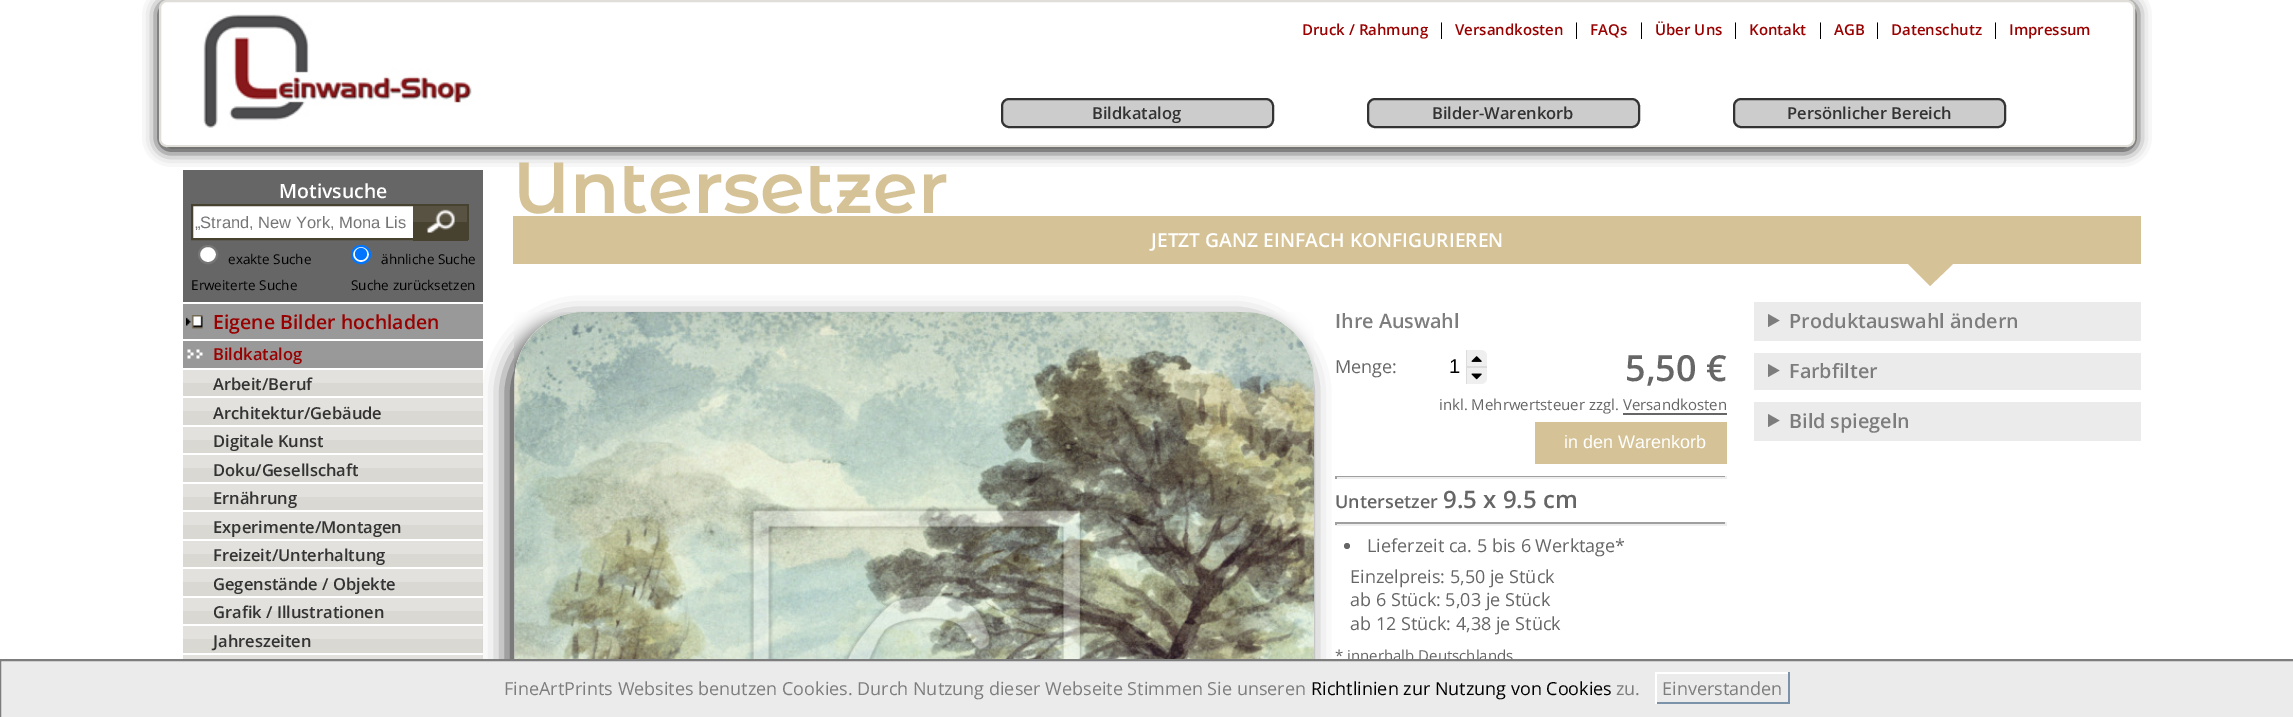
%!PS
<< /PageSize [2293 717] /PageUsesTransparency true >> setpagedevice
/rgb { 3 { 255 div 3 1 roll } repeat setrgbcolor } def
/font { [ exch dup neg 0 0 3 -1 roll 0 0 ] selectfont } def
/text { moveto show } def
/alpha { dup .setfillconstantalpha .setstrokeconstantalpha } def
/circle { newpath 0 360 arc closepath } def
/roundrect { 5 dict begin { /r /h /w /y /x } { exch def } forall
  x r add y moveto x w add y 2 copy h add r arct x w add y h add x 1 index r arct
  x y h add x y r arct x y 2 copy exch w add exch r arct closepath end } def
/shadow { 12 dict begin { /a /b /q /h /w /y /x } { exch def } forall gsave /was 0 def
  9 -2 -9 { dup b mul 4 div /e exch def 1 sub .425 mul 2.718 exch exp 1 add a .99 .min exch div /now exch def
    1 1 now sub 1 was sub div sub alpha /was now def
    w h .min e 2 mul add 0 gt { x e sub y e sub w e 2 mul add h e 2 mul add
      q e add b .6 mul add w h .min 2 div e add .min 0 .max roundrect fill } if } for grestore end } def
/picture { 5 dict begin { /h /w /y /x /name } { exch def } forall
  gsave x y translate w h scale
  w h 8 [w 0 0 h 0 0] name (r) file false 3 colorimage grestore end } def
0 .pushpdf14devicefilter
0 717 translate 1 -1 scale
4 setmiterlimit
255 255 255 rgb
0 0 2293 717 rectfill
gsave
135 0 moveto 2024 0 rlineto 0 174 rlineto -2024 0 rlineto closepath 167 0 moveto 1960 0 rlineto 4.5 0 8 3.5 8 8 rcurveto 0 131 rlineto 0 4.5 -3.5 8 -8 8 rcurveto -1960 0 rlineto -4.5 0 -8 -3.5 -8 -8 rcurveto 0 -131 rlineto 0 -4.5 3.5 -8 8 -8 rcurveto closepath eoclip newpath
0 0 0 rgb
159 3 1976 147 8 7.5 1 shadow
grestore
224 222 217 rgb
2 setlinewidth
160 1 1974 145 7 roundrect stroke
(img_01.rgb) 203 14 269 114 picture
204 204 204 rgb
1002 99 271 28 7 roundrect gsave fill grestore
51 51 51 rgb
stroke
204 204 204 rgb
1368 99 271 28 7 roundrect gsave fill grestore
51 51 51 rgb
stroke
204 204 204 rgb
1734 99 271 28 7 roundrect gsave fill grestore
51 51 51 rgb
stroke
102 102 102 rgb
183 170 300 132 rectfill
255 255 255 rgb
193 206 220 32 rectfill
71 65 47 rgb
192 205 224 34 rectstroke
413 204 55 2 rectfill
88 82 66 rgb
413 206 54 16 rectfill
71 65 47 rgb
413 222 54 17 rectfill
467 204 2 36 rectfill
413 239 55 2 rectfill
(img_02.rgb) 426 209 29 24 picture
255 255 255 rgb
199 246 18 17 8.5 roundrect gsave fill grestore
118 118 118 rgb
stroke
255 255 255 rgb
352 246 18 17 8.5 roundrect gsave fill grestore
0 117 255 rgb
stroke
361 254 6 circle fill
153 153 153 rgb
183 304 300 35 rectfill
(img_03.rgb) 186 315 17 14 picture
183 341 300 27 rectfill
(img_04.rgb) 187 349 16 10 picture
226 225 222 rgb
183 370 300 13 rectfill
217 216 211 rgb
183 383 300 13 rectfill
226 225 222 rgb
183 398 300 13 rectfill
217 216 211 rgb
183 411 300 14 rectfill
226 225 222 rgb
183 427 300 13 rectfill
217 216 211 rgb
183 440 300 13 rectfill
226 225 222 rgb
183 455 300 13 rectfill
217 216 211 rgb
183 468 300 14 rectfill
226 225 222 rgb
183 484 300 13 rectfill
217 216 211 rgb
183 497 300 13 rectfill
226 225 222 rgb
183 512 300 13 rectfill
217 216 211 rgb
183 525 300 14 rectfill
226 225 222 rgb
183 541 300 13 rectfill
217 216 211 rgb
183 554 300 13 rectfill
226 225 222 rgb
183 569 300 13 rectfill
217 216 211 rgb
183 582 300 14 rectfill
226 225 222 rgb
183 598 300 13 rectfill
217 216 211 rgb
183 611 300 13 rectfill
226 225 222 rgb
183 626 300 13 rectfill
217 216 211 rgb
183 639 300 14 rectfill
226 225 222 rgb
183 655 300 4 rectfill
213 194 151 rgb
513 216 1628 48 rectfill
1908 264 moveto 45 0 rlineto -23 22 rlineto closepath fill
159 159 159 rgb
1335 476 392 1 rectfill
238 238 238 rgb
1725 476 2 3 rectfill
1335 477 392 2 rectfill
159 159 159 rgb
1335 476 2 3 rectfill
1335 522 392 2 rectfill
238 238 238 rgb
1725 522 2 3 rectfill
1335 524 392 2 rectfill
159 159 159 rgb
1335 522 2 3 rectfill
0 0 0 rgb
507 320 800 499 69 11 0.75 shadow
(img_05.rgb) 514 312 800 347 picture
220 220 220 rgb
1466 350 1 34 rectfill
239 239 239 rgb
1467 350 moveto 14 0 rlineto 3.5 0 6 2.5 6 6 rcurveto 0 10 rlineto -20 0 rlineto closepath fill
(img_06.rgb) 1471 356 11 6 picture
1467 366 moveto 20 0 rlineto 0 12 rlineto 0 3.5 -2.5 6 -6 6 rcurveto -14 0 rlineto closepath fill
220 220 220 rgb
1467 366 20 2 rectfill
(img_07.rgb) 1471 373 11 7 picture
102 102 102 rgb
1623 413 104 2 rectfill
213 194 151 rgb
1535 422 192 42 rectfill
102 102 102 rgb
1347 546 3 circle fill
235 235 235 rgb
1754 302 387 39 rectfill
125 125 125 rgb
1768 314 moveto 11.5 6.5 rlineto -11.5 6.5 rlineto closepath fill
235 235 235 rgb
1754 353 387 37 rectfill
125 125 125 rgb
1768 364 moveto 11.5 6.5 rlineto -11.5 6.5 rlineto closepath fill
235 235 235 rgb
1754 402 387 39 rectfill
125 125 125 rgb
1768 414 moveto 11.5 6.5 rlineto -11.5 6.5 rlineto closepath fill
/OpenSans-SemiBold 15 font
153 0 0 rgb
(Druck / Rahmung) 1302 35 text
/OpenSans-Regular 16.5 font
0 0 0 rgb
(|) 1437 35 text
/OpenSans-SemiBold 15 font
153 0 0 rgb
(Versandkosten) 1455 35 text
/OpenSans-Regular 16.5 font
0 0 0 rgb
(|) 1572 35 text
/OpenSans-SemiBold 15 font
153 0 0 rgb
(FAQs) 1590 35 text
/OpenSans-Regular 16.5 font
0 0 0 rgb
(|) 1637 35 text
/OpenSans-SemiBold 15 font
153 0 0 rgb
(Über Uns) 1655 35 text
/OpenSans-Regular 16.5 font
0 0 0 rgb
(|) 1731 35 text
/OpenSans-SemiBold 15 font
153 0 0 rgb
(Kontakt) 1749 35 text
/OpenSans-Regular 16.5 font
0 0 0 rgb
(|) 1816 35 text
/OpenSans-SemiBold 15 font
153 0 0 rgb
(AGB) 1834 35 text
/OpenSans-Regular 16.5 font
0 0 0 rgb
(|) 1873 35 text
/OpenSans-SemiBold 15 font
153 0 0 rgb
(Datenschutz) 1891 35 text
/OpenSans-Regular 16.5 font
0 0 0 rgb
(|) 1991 35 text
/OpenSans-SemiBold 15 font
153 0 0 rgb
(Impressum) 2009 35 text
/OpenSans-SemiBold 16.5 font
51 51 51 rgb
(Bildkatalog) 1092 119 text
(Bilder-Warenkorb) 1432 119 text
(Persönlicher Bereich) 1787 119 text
/OpenSans-SemiBold 19.5 font
255 255 255 rgb
(Motivsuche) 279 198 text
/LiberationSans-Regular 16.5 font
117 117 117 rgb
(„Strand, New York, Mona Lis) 195 228 text
/OpenSans-Regular 13.5 font
0 0 0 rgb
(exakte Suche) 228 264 text
(ähnliche Suche) 381 264 text
(Erweiterte Suche) 191 290 text
(Suche zurücksetzen) 351 290 text
/OpenSans-SemiBold 19.5 font
153 0 0 rgb
(Eigene Bilder hochladen) 213 329 text
/OpenSans-SemiBold 16.5 font
(Bildkatalog) 213 360 text
51 51 51 rgb
(Arbeit/Beruf) 213 390 text
(Architektur/Gebäude) 213 419 text
(Digitale Kunst) 213 447 text
(Doku/Gesellschaft) 213 476 text
(Ernährung) 213 504 text
(Experimente/Montagen) 213 533 text
(Freizeit/Unterhaltung) 213 561 text
(Gegenstände / Objekte) 213 590 text
(Grafik / Illustrationen) 213 618 text
(Jahreszeiten) 213 647 text
/MontserratAlternates-SemiBold 72 font
213 194 151 rgb
(Untersetzer) 513 213 text
/OpenSans-SemiBold 19.25 font
255 255 255 rgb
(JETZT GANZ EINFACH KONFIGURIEREN) 1151 247 text
/OpenSans-SemiBold 19.75 font
125 125 125 rgb
(Ihre Auswahl) 1335 328 text
/OpenSans-Regular 18 font
102 102 102 rgb
(Menge:) 1335 373 text
/LiberationSans-Regular 20 font
0 0 0 rgb
(1) 1449 373 text
/OpenSans-SemiBold 36 font
102 102 102 rgb
(5,50 €) 1625 381 text
/OpenSans-Regular 15 font
(inkl. Mehrwertsteuer zzgl. Versandkosten) 1439 410 text
/LiberationSans-Regular 18 font
255 255 255 rgb
(in den Warenkorb) 1564 448 text
/OpenSans-SemiBold 18 font
102 102 102 rgb
(Untersetzer) 1335 508 text
/OpenSans-SemiBold 24 font
(9.5 x 9.5 cm) 1443 508 text
/OpenSans-Regular 18 font
(Lieferzeit ca. 5 bis 6 Werktage*) 1367 552 text
(Einzelpreis: 5,50 je Stück) 1350 583 text
(ab 6 Stück: 5,03 je Stück) 1350 606 text
(ab 12 Stück: 4,38 je Stück) 1350 630 text
/OpenSans-Regular 15 font
(* innerhalb Deutschlands) 1335 661 text
/OpenSans-SemiBold 19.75 font
125 125 125 rgb
(Produktauswahl ändern) 1789 328 text
(Farbfilter) 1789 378 text
(Bild spiegeln) 1789 428 text
235 235 235 rgb
1 661 2292 56 rectfill
/OpenSans-Regular 18 font
125 125 125 rgb
(FineArtPrints Websites benutzen Cookies. Durch Nutzung dieser Webseite Stimmen Sie unseren) 504 695 text
0 0 0 rgb
(Richtlinien zur Nutzung von Cookies) 1311 695 text
125 125 125 rgb
(zu.) 1616 695 text
(Einverstanden) 1662 695 text
255 255 255 rgb
1655 672 135 2 rectfill
123 146 169 rgb
1788 672 2 32 rectfill
1655 702 135 2 rectfill
255 255 255 rgb
1655 672 2 32 rectfill
125 125 125 rgb
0 660 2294 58 rectstroke
.poppdf14devicefilter showpage
